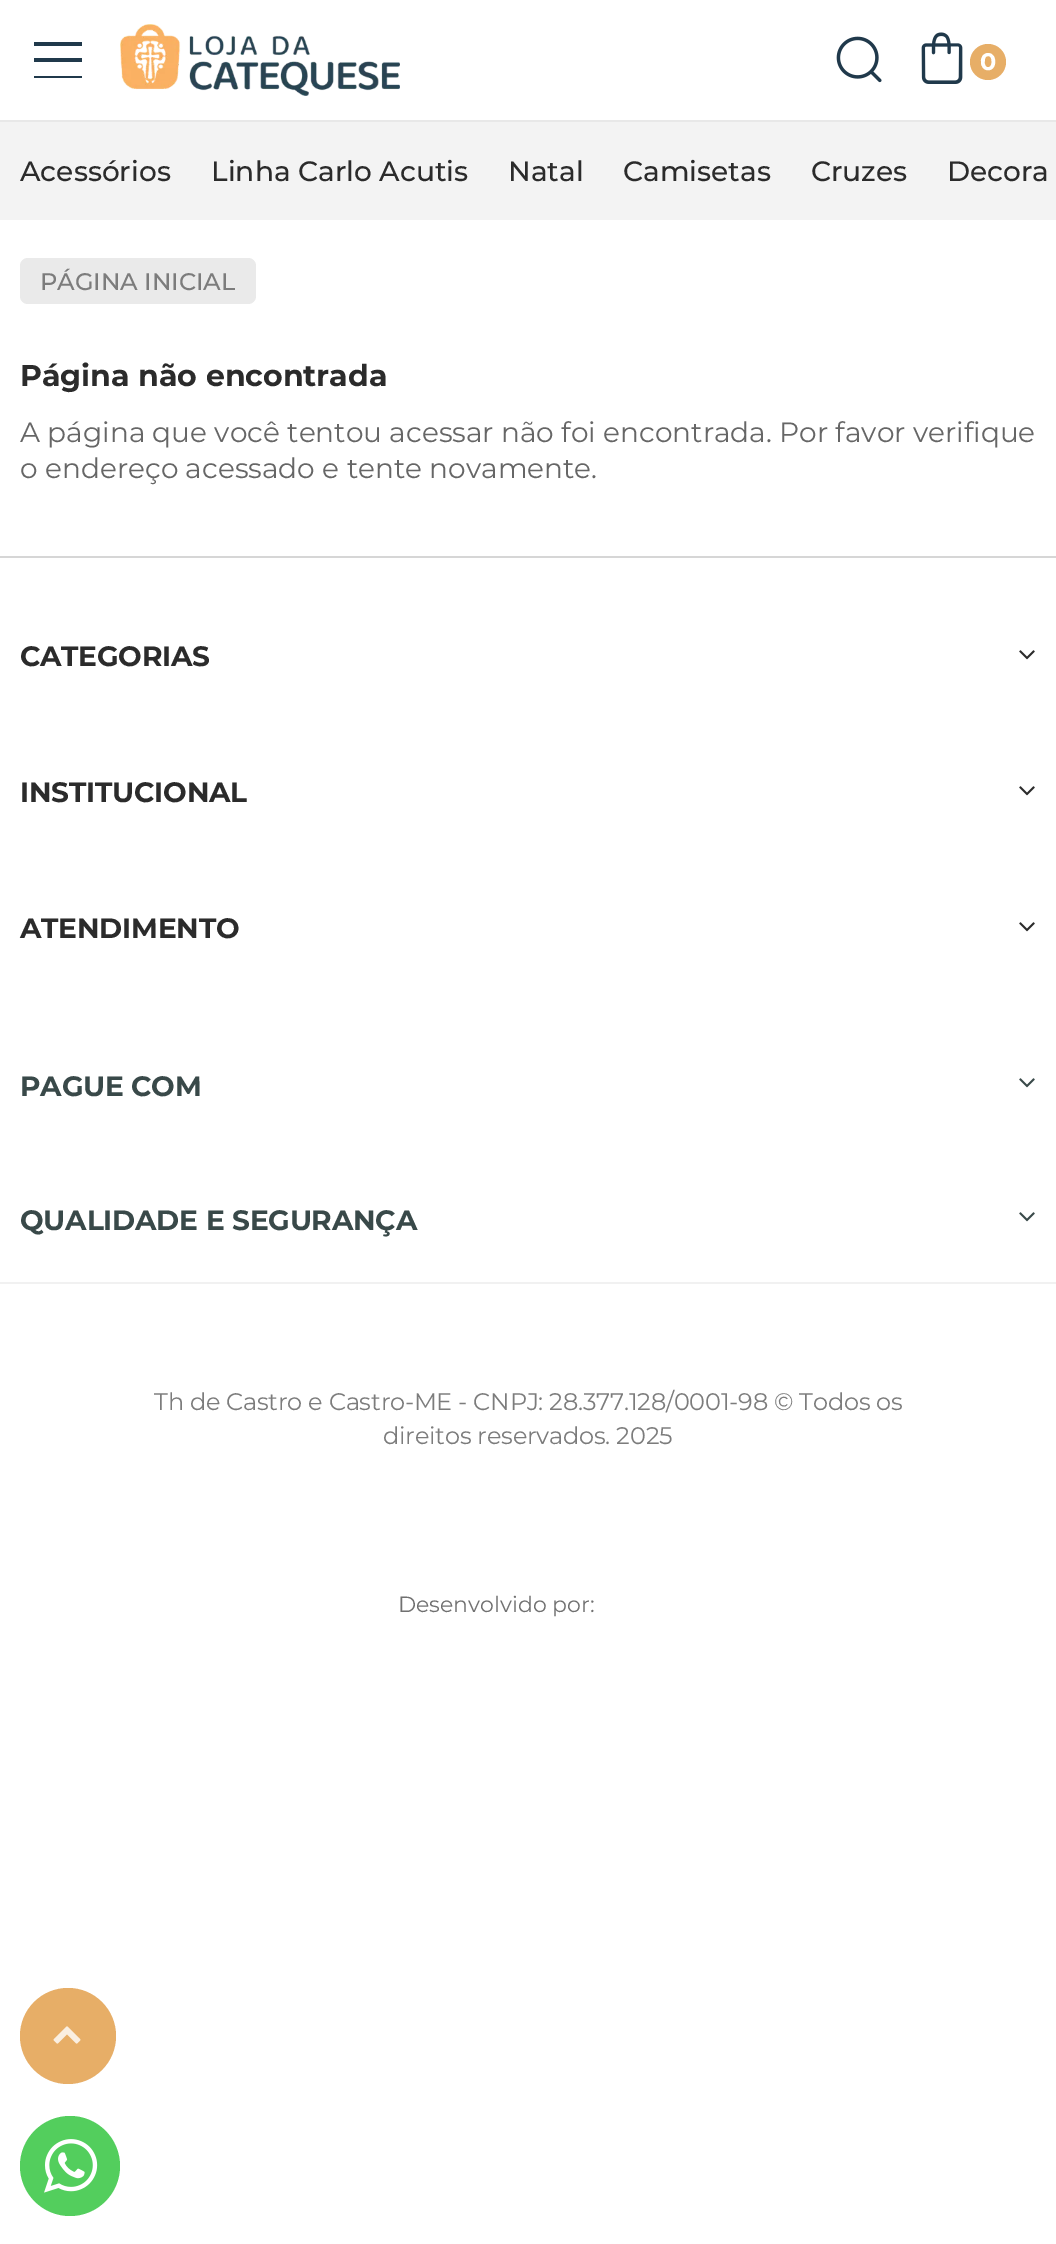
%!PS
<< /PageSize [1056 2244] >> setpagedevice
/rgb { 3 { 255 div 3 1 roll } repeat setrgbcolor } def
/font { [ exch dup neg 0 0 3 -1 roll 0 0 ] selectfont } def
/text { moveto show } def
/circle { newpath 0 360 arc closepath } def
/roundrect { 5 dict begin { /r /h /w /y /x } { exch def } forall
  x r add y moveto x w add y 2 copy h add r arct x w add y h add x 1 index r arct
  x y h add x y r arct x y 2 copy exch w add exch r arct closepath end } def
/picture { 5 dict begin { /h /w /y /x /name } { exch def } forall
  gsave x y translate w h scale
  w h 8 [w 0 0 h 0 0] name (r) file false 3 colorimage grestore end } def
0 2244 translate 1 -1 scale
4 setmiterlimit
255 255 255 rgb
0 0 1056 2244 rectfill
32 57 75 rgb
34 42 48 4 rectfill
34 58 48 4 rectfill
34 76 48 2 rectfill
(img_01.rgb) 120 24 280 72 picture
(img_02.rgb) 836 36 46 47 picture
(img_03.rgb) 921 32 42 52 picture
231 174 103 rgb
988 62 18 circle fill
243 243 243 rgb
0 122 1056 98 rectfill
232 232 232 rgb
0 120 1056 2 rectfill
234 234 234 rgb
20 258 236 46 8 roundrect fill
214 214 214 rgb
0 556 1056 2 rectfill
(img_04.rgb) 1019 650 16 10 picture
(img_04.rgb) 1019 786 16 10 picture
(img_04.rgb) 1019 922 16 10 picture
(img_05.rgb) 1019 1078 16 10 picture
(img_05.rgb) 1019 1212 16 10 picture
241 241 241 rgb
0 1282 1056 2 rectfill
231 174 103 rgb
68 2036 48 circle fill
(img_06.rgb) 53 2026 28 18 picture
83 206 93 rgb
70 2166 50 circle fill
(img_07.rgb) 44 2139 54 54 picture
/Montserrat-Bold 24 font
255 255 255 rgb
(0) 980 70 text
/Montserrat-Medium 28 font
43 43 43 rgb
(Acessórios) 20 181 text
(Linha Carlo Acutis) 211 181 text
(Natal) 508 181 text
(Camisetas) 623 181 text
(Cruzes) 811 181 text
(Decora) 947 181 text
/Montserrat-Medium 24 font
124 124 124 rgb
(PÁGINA INICIAL) 40 290 text
/Montserrat-Bold 30 font
43 43 43 rgb
(Página não encontrada) 20 386 text
/Montserrat-Regular 28 font
102 102 102 rgb
(A página que você tentou acessar não foi encontrada. Por favor verifique) 20 442 text
(o endereço acessado e tente novamente.) 20 478 text
/Montserrat-Bold 28 font
43 43 43 rgb
20 666 moveto -0.2 0 (CATEGORIAS) ashow
20 802 moveto -0.2 0 (INSTITUCIONAL) ashow
20 938 moveto -0.2 0 (ATENDIMENTO) ashow
57 73 73 rgb
20 1096 moveto -0.2 0 (PAGUE COM) ashow
20 1230 moveto -0.2 0 (QUALIDADE E SEGURANÇA) ashow
/Montserrat-Regular 24 font
124 124 124 rgb
154 1410 moveto -0.2 0 (Th de Castro e Castro-ME - CNPJ: 28.377.128/0001-98 © Todos os) ashow
383 1444 moveto -0.2 0 (direitos reservados. 2025) ashow
/Montserrat-Regular 22 font
113 113 113 rgb
(Desenvolvido por:) 398 1612 text
showpage
